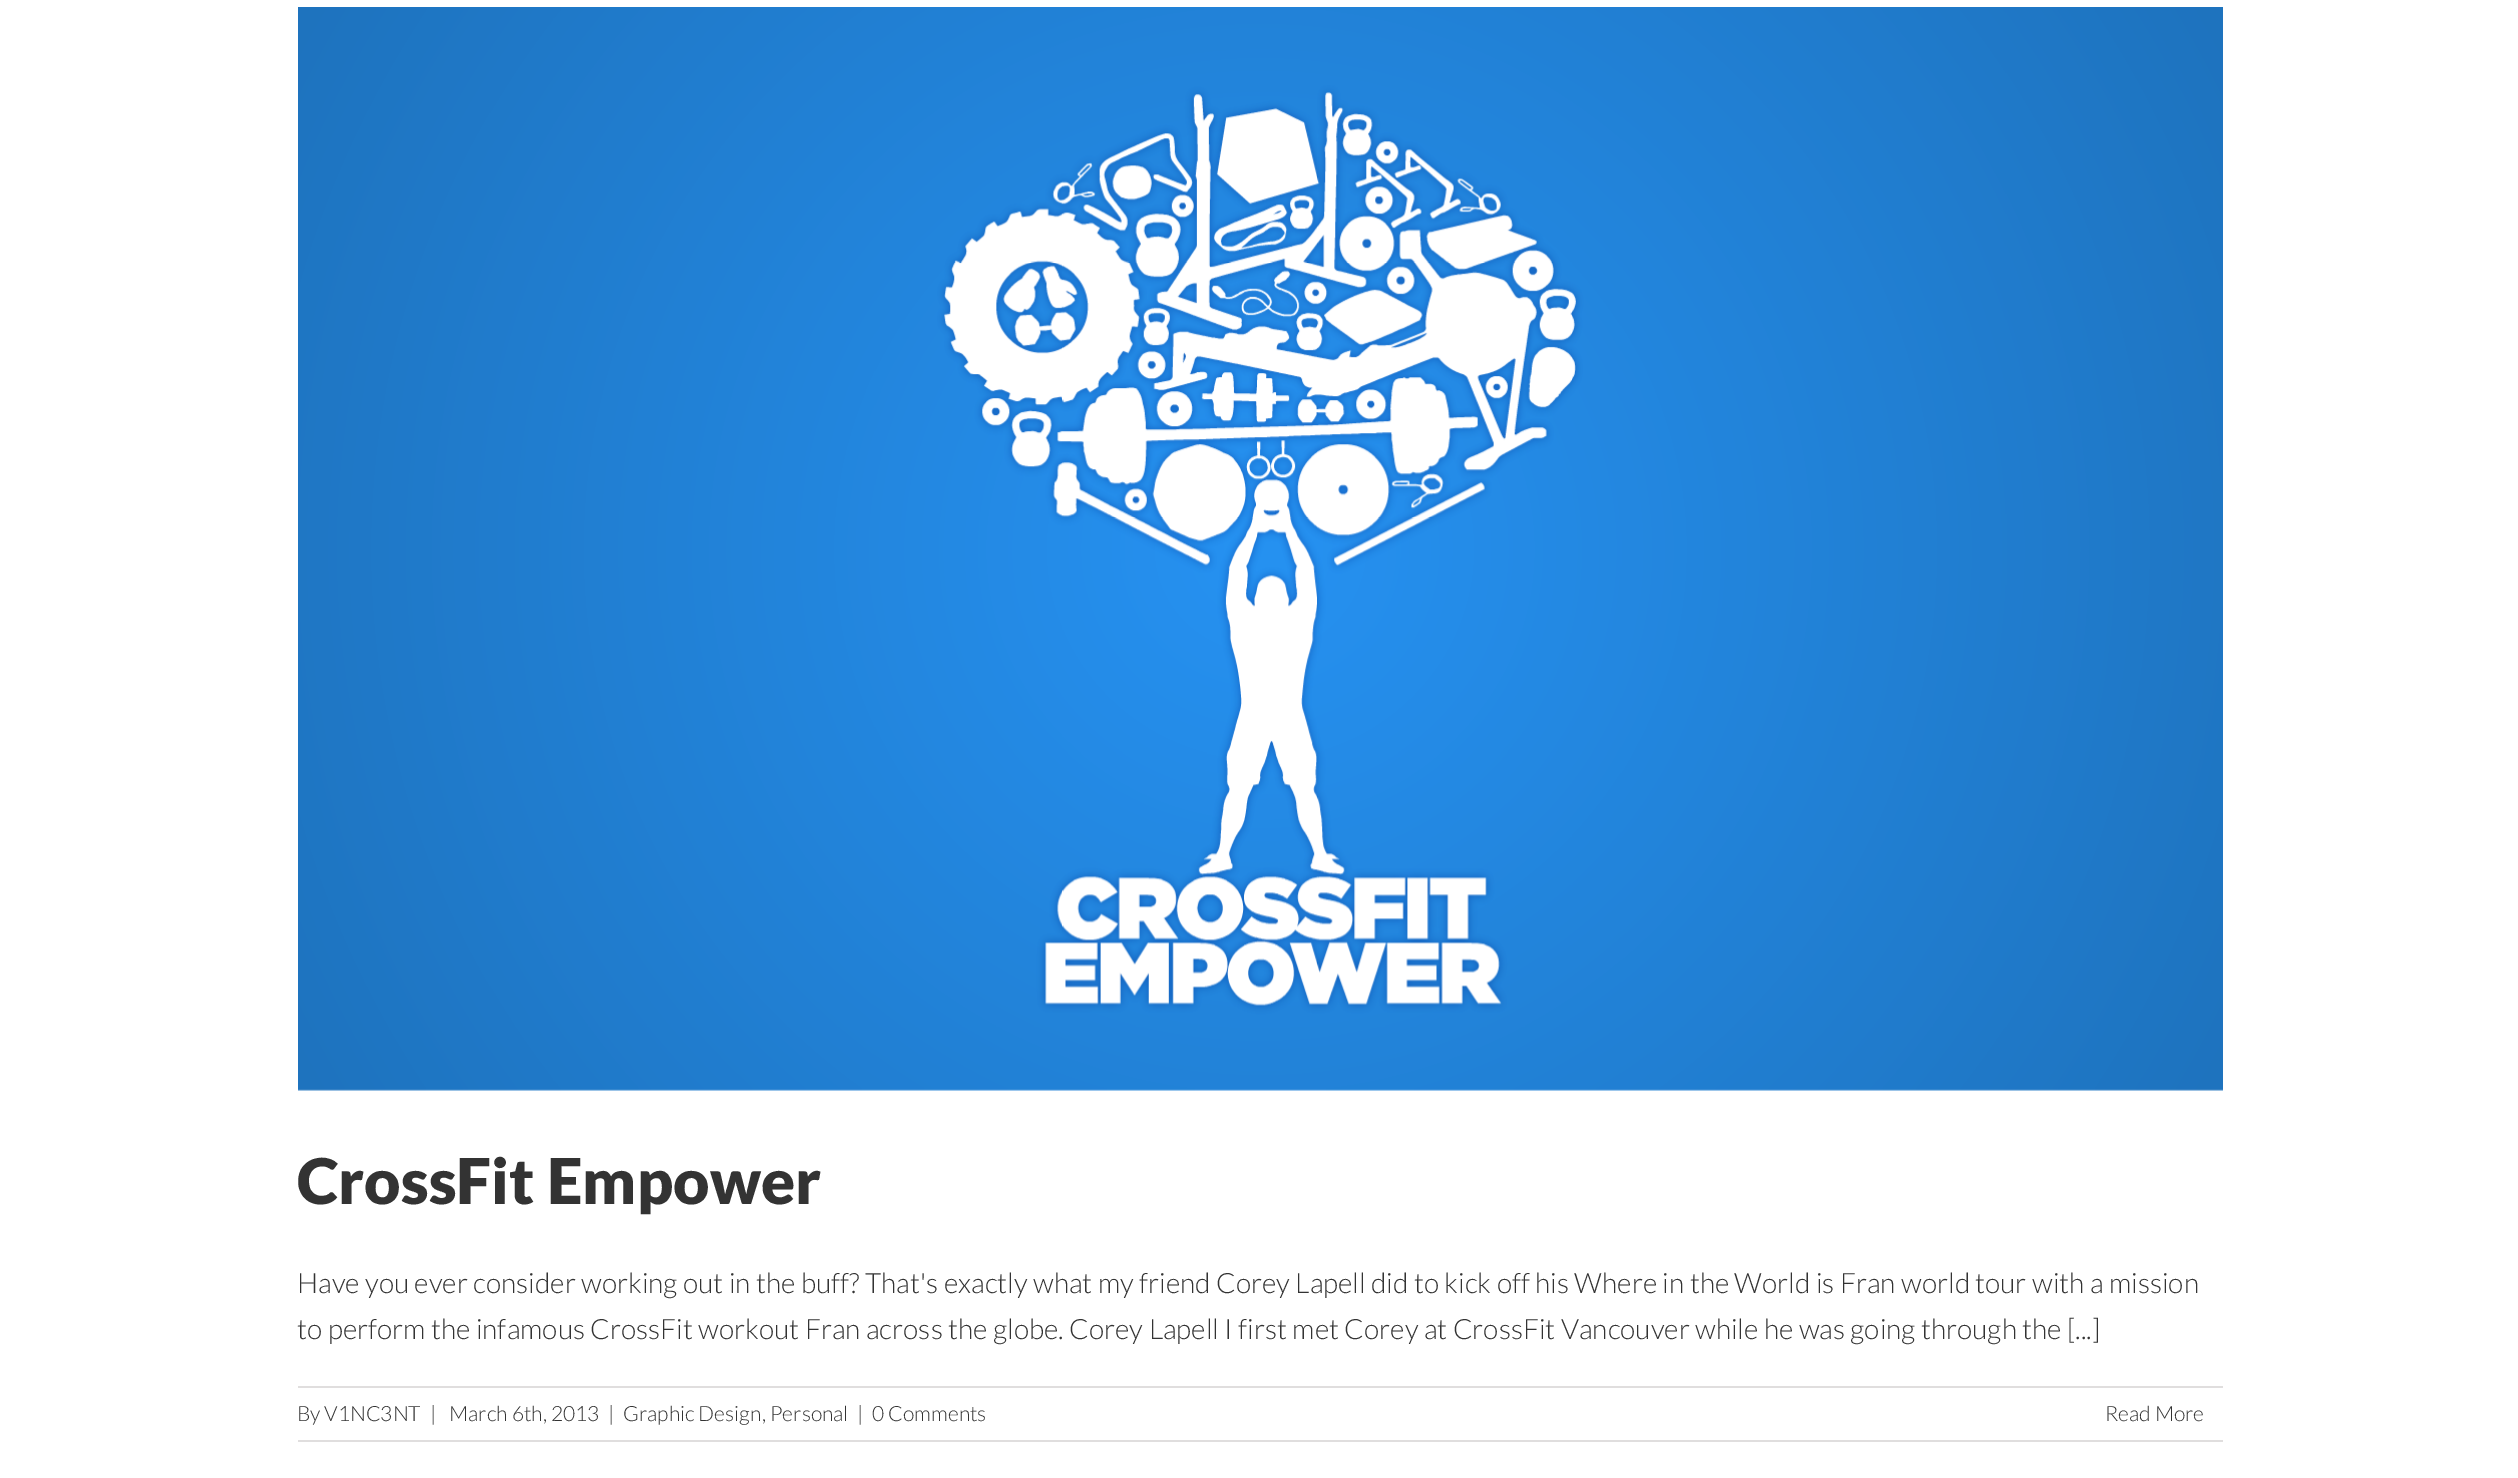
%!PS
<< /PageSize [2518 1478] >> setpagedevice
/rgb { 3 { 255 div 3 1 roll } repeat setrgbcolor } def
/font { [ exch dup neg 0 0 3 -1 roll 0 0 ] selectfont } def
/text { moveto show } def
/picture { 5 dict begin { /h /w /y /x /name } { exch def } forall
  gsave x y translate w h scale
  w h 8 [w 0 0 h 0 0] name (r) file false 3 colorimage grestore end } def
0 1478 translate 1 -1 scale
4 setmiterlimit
255 255 255 rgb
0 0 2518 1478 rectfill
(img_01.rgb) 298 7 1925 1084 picture
224 222 222 rgb
298 1386 1925 2 rectfill
298 1440 1925 2 rectfill
/Lato-Black 63 font
51 51 51 rgb
(CrossFit Empower) 297 1204 text
/Lato-Light 28 font
(Have you ever consider working out in the buff? That's exactly what my friend Corey Lapell did to kick off his Where in the World is Fran world tour with a mission) 297 1293 text
(to perform the infamous CrossFit workout Fran across the globe. Corey Lapell I first met Corey at CrossFit Vancouver while he was going through the [...]) 297 1339 text
/Lato-Light 21 font
(By) 297 1421 text
(V1NC3NT) 324 1421 text
(|) 430 1421 text
(March 6th, 2013) 449 1421 text
(|) 608 1421 text
(Graphic Design) 623 1421 text
(,) 762 1421 text
(Personal) 770 1421 text
(|) 857 1421 text
(0 Comments) 872 1421 text
(Read More) 2105 1421 text
showpage
